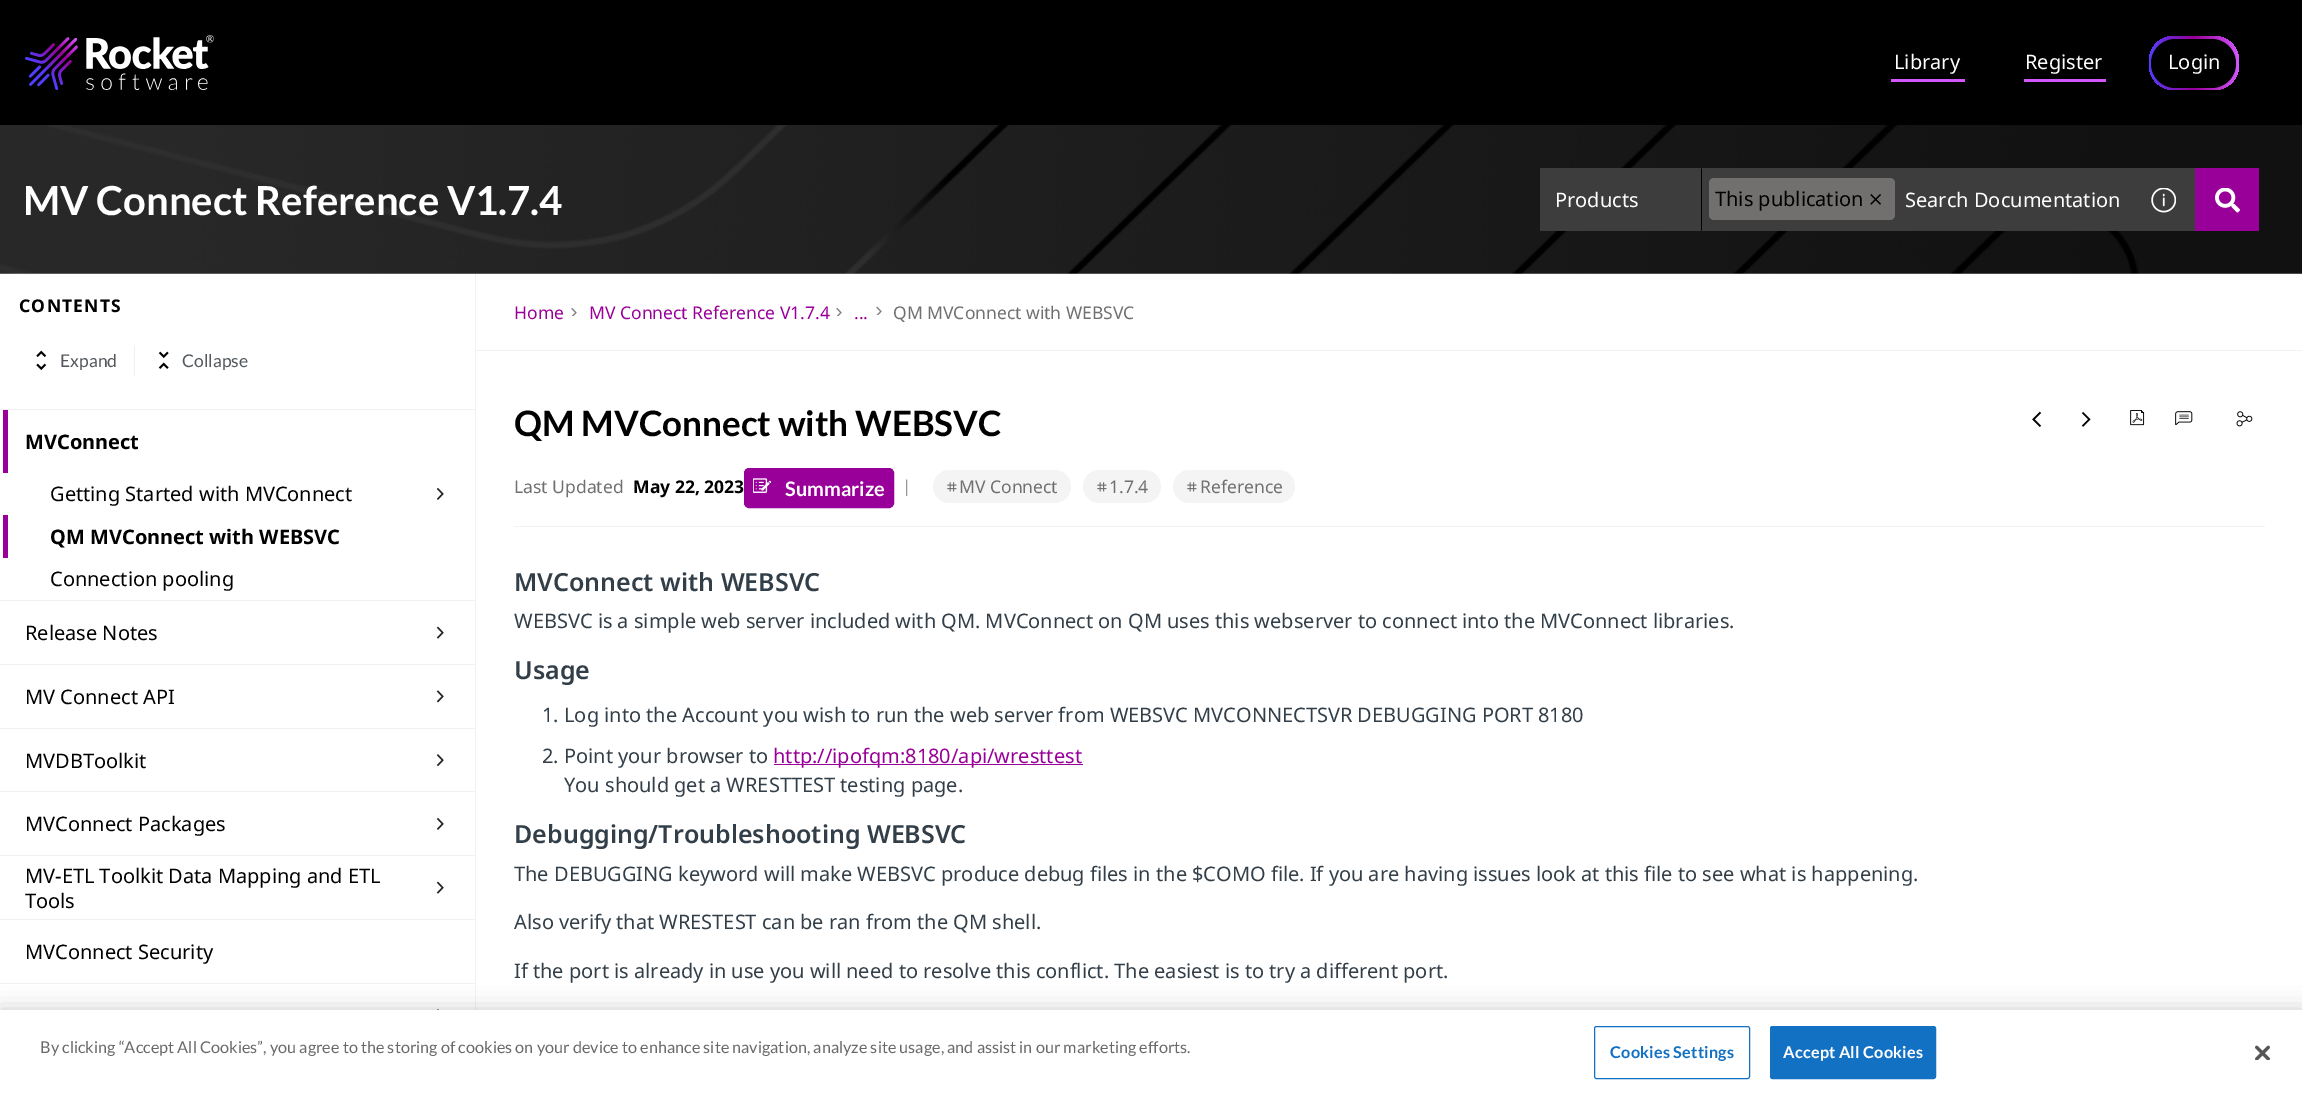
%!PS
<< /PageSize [2302 1098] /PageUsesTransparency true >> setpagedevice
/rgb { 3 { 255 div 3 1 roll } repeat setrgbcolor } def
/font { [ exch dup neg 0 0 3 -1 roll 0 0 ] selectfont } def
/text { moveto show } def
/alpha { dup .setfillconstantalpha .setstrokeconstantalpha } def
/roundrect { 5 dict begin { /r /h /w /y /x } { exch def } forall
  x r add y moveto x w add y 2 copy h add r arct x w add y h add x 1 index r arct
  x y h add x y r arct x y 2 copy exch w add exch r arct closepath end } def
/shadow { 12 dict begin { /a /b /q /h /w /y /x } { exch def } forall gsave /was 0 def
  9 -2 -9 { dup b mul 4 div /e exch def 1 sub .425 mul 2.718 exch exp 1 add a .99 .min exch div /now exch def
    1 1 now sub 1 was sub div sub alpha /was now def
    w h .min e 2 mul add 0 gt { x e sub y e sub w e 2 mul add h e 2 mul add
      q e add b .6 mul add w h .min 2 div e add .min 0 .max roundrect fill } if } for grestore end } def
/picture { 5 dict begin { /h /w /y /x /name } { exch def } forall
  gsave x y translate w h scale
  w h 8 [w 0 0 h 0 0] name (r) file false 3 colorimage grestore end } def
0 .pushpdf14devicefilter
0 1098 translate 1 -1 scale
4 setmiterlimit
255 255 255 rgb
0 0 2302 1098 rectfill
0 0 0 rgb
0 0 2302 125 rectfill
(img_01.rgb) 25 35 189 55 picture
210 87 252 rgb
1891 79 74 3 rectfill
2024 79 82 3 rectfill
gsave 2149 36 90 54 25 roundrect clip newpath
<< /ShadingType 2 /ColorSpace /DeviceRGB /Coords [2149 63 2239 63] /Extend [true true] /Function << /FunctionType 3 /Domain [0 1] /Functions [<< /FunctionType 2 /Domain [0 1] /C0 [0.329 0.235 0.984] /C1 [0.6 0 0.6] /N 1 >> << /FunctionType 2 /Domain [0 1] /C0 [0.6 0 0.6] /C1 [0.824 0.341 0.988] /N 1 >>] /Bounds [0.5] /Encode [0 1 0 1] >> >> shfill grestore
0 0 0 rgb
2151 39 85 49 24.5 roundrect fill
(img_02.rgb) 0 125 2302 149 picture
61 61 61 rgb
1540 168 163 63 rectfill
0 0 0 rgb
1702 168 moveto 0 63 rlineto -1 -1 rlineto 0 -61 rlineto closepath fill
61 61 61 rgb
1703 168 492 63 rectfill
(img_03.rgb) 2151 188 25 25 picture
153 0 153 rgb
2195 168 64 63 rectfill
(img_04.rgb) 2215 188 25 25 picture
114 111 111 rgb
1709 178 186 42 5 roundrect fill
(img_05.rgb) 1870 194 11 11 picture
242 242 242 rgb
475 274 1 736 rectfill
0 409 475 1 rectfill
(img_06.rgb) 36 350 11 20 picture
239 240 240 rgb
134 345 1 31 rectfill
(img_07.rgb) 158 351 11 18 picture
242 242 242 rgb
0 600 475 1 rectfill
153 0 153 rgb
3 410 5 63 rectfill
(img_08.rgb) 436 488 8 12 picture
3 515 5 43 rectfill
242 242 242 rgb
0 664 475 1 rectfill
(img_09.rgb) 436 626 8 13 picture
0 728 475 1 rectfill
(img_10.rgb) 436 690 8 13 picture
0 791 475 1 rectfill
(img_11.rgb) 436 754 8 12 picture
0 855 475 1 rectfill
(img_08.rgb) 436 818 8 12 picture
0 919 475 1 rectfill
(img_09.rgb) 436 881 8 13 picture
0 983 475 1 rectfill
(img_12.rgb) 437 1009 2 1 picture
476 350 1826 1 rectfill
(img_13.rgb) 571 308 6 8 picture
(img_13.rgb) 836 308 6 8 picture
(img_14.rgb) 876 306 6 9 picture
514 526 1751 1 rectfill
(img_15.rgb) 2032 411 10 16 picture
(img_16.rgb) 2081 412 10 15 picture
(img_17.rgb) 2130 410 15 16 picture
(img_18.rgb) 2175 411 18 15 picture
(img_19.rgb) 2236 411 17 16 picture
153 0 153 rgb
744.5 468.5 149 39 4.5 roundrect gsave fill grestore
stroke
(img_20.rgb) 753 478 19 15 picture
244 244 244 rgb
933 470 138 33 16.5 roundrect fill
(img_21.rgb) 947 482 10 10 picture
1083 470 78 33 16.5 roundrect fill
(img_21.rgb) 1097 482 10 10 picture
1173 470 122 33 16.5 roundrect fill
(img_21.rgb) 1187 482 10 10 picture
153 0 153 rgb
774 764 309 1 rectfill
0 0 0 rgb
0 1010 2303 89 0 11 0.2 shadow
255 255 255 rgb
0 1010 2302 88 rectfill
19 113 195 rgb
1594.5 1026.5 155 52 2 roundrect stroke
1770.5 1026.5 165 52 2 roundrect gsave fill grestore
stroke
(img_22.rgb) 2255 1045 15 15 picture
/NotoSans-Regular 20 font
255 255 255 rgb
(Library) 1894 69 text
(Register) 2025 69 text
(Login) 2168 69 text
/Lato-Bold 40 font
(MV Connect Reference V1.7.4) 23 215 text
/NotoSans-Regular 20 font
(Products) 1555 207 text
0 0 0 rgb
(This publication) 1715 206 text
255 255 255 rgb
(Search Documentation) 1905 207 text
/NotoSans-Bold 17.5 font
0 0 0 rgb
19 312 moveto 1.25 0 (CONTENTS) ashow
/Lato-Regular 17.5 font
82 88 93 rgb
(Expand) 60 367 text
(Collapse) 182 367 text
/NotoSans-Bold 20 font
0 0 0 rgb
(MVConnect) 25 449 text
/NotoSans-Regular 20 font
(Getting Started with MVConnect) 50 501 text
/NotoSans-Bold 20 font
(QM MVConnect with WEBSVC) 50 544 text
/NotoSans-Regular 20 font
(Connection pooling) 50 586 text
(Release Notes) 25 640 text
(MV Connect API) 25 704 text
(MVDBToolkit) 25 768 text
(MVConnect Packages) 25 831 text
(MV-ETL Toolkit Data Mapping and ETL) 25 883 text
(Tools) 25 908 text
(MVConnect Security) 25 959 text
/NotoSans-Regular 17.5 font
153 0 153 rgb
(Home) 514 319 text
(MV Connect Reference V1.7.4) 589 319 text
(...) 854 319 text
114 111 111 rgb
(QM MVConnect with WEBSVC) 893 319 text
/Lato-Bold 35 font
0 0 0 rgb
(QM MVConnect with WEBSVC) 514 436 text
/NotoSans-Regular 17.5 font
114 111 111 rgb
(Last Updated) 514 493 text
/NotoSans-Bold 17.5 font
0 0 0 rgb
(May 22, 2023) 633 493 text
/Lato-Bold 20 font
255 255 255 rgb
(Summarize) 785 496 text
/Lato-Regular 17.5 font
147 151 154 rgb
(|) 904 493 text
/NotoSans-Regular 17.5 font
114 111 111 rgb
(MV Connect) 959 493 text
(1.7.4) 1109 493 text
(Reference) 1200 493 text
/NotoSans-SemiBold 25 font
50 62 72 rgb
(MVConnect with WEBSVC) 514 591 text
/NotoSans-Regular 20 font
(WEBSVC is a simple web server included with QM. MVConnect on QM uses this webserver to connect into the MVConnect libraries.) 514 628 text
/NotoSans-SemiBold 25 font
(Usage) 514 679 text
/NotoSans-Regular 20 font
(1. Log into the Account you wish to run the web server from WEBSVC MVCONNECTSVR DEBUGGING PORT 8180) 542 722 text
(2. Point your browser to) 542 763 text
153 0 153 rgb
(http://ipofqm:8180/api/wresttest) 773 763 text
50 62 72 rgb
(You should get a WRESTTEST testing page.) 564 792 text
/NotoSans-SemiBold 25 font
(Debugging/Troubleshooting WEBSVC) 514 843 text
/NotoSans-Regular 20 font
(The DEBUGGING keyword will make WEBSVC produce debug files in the $COMO file. If you are having issues look at this file to see what is happening.) 514 881 text
(Also verify that WRESTEST can be ran from the QM shell.) 514 929 text
(If the port is already in use you will need to resolve this conflict. The easiest is to try a different port.) 514 978 text
/Lato-Regular 16.25 font
105 105 105 rgb
(By clicking “Accept All Cookies”, you agree to the storing of cookies on your device to enhance site navigation, analyze site usage, and assist in our marketing efforts.) 40 1053 text
/Lato-Bold 16.25 font
19 113 195 rgb
1610 1058 moveto 0.2 0 (Cookies Settings) ashow
255 255 255 rgb
1783 1058 moveto 0.2 0 (Accept All Cookies) ashow
.poppdf14devicefilter showpage
